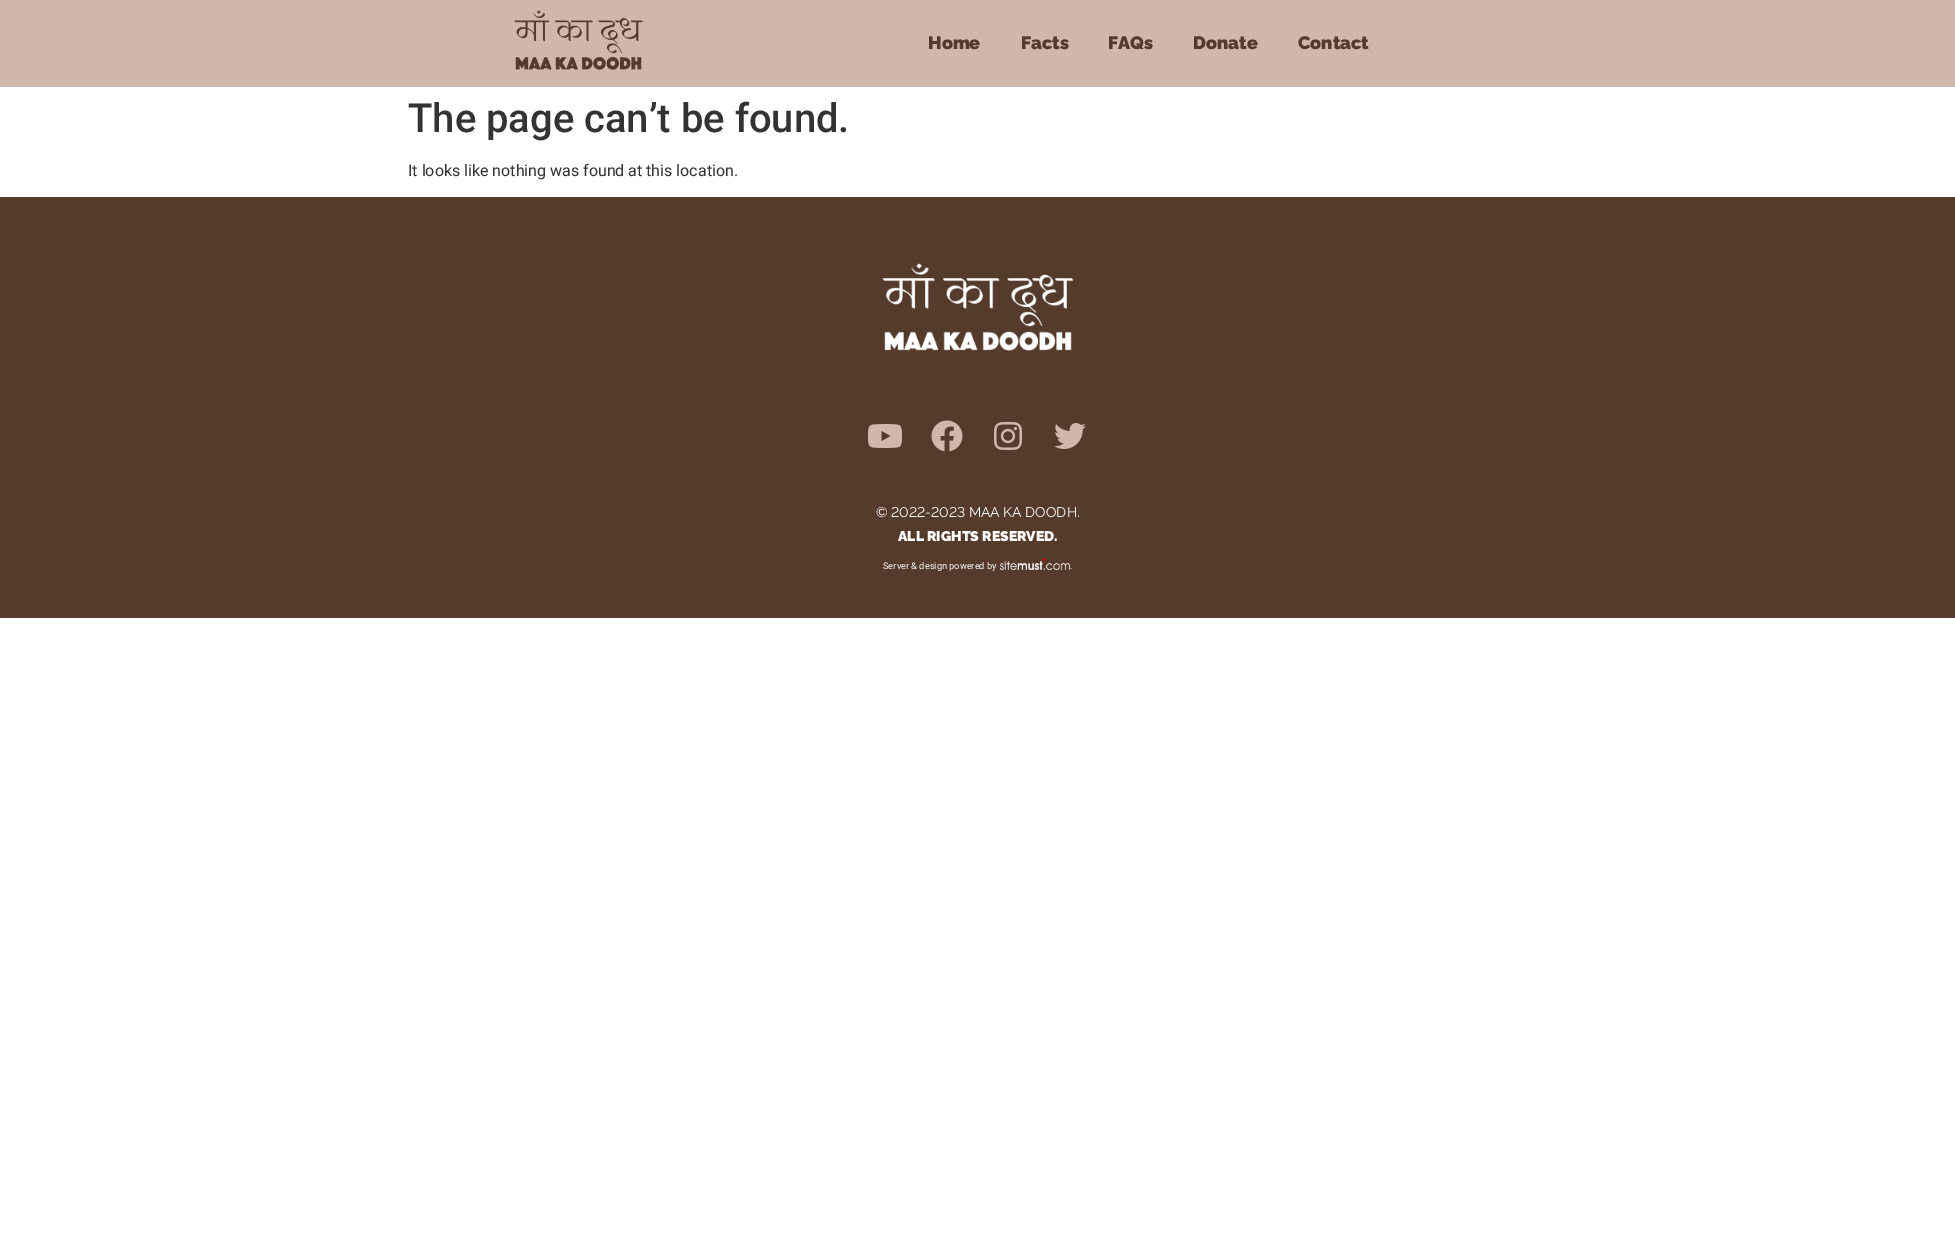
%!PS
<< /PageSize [1955 1257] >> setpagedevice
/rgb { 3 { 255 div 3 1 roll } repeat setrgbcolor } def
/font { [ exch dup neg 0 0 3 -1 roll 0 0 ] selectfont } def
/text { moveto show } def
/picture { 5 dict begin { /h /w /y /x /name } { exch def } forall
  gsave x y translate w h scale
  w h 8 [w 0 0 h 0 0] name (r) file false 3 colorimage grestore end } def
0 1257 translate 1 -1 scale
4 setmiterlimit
255 255 255 rgb
0 0 1955 1257 rectfill
208 182 171 rgb
0 0 1955 87 rectfill
(img_01.rgb) 514 10 129 60 picture
85 59 44 rgb
0 197 1955 421 rectfill
(img_02.rgb) 882 263 192 88 picture
(img_03.rgb) 867 424 36 24 picture
(img_04.rgb) 931 420 32 32 picture
(img_05.rgb) 994 421 29 29 picture
(img_06.rgb) 1054 423 32 26 picture
(img_07.rgb) 1000 558 70 12 picture
/Raleway-Black 18 font
(Home) 928 49 text
(Facts) 1021 49 text
(FAQs) 1108 49 text
(Donate) 1193 49 text
(Contact) 1298 49 text
/Roboto-Medium 40 font
51 51 51 rgb
(The page can’t be found.) 408 132 text
/Roboto-Regular 16 font
(It looks like nothing was found at this location.) 408 176 text
/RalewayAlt-Regular 14 font
255 255 255 rgb
(© 2022-2023 MAA KA DOODH.) 876 517 text
/Raleway-Black 14 font
(ALL RIGHTS RESERVED.) 898 541 text
/Roboto-Regular 9.25 font
(Server & design powered by) 883 569 text
(.) 1070 569 text
showpage
